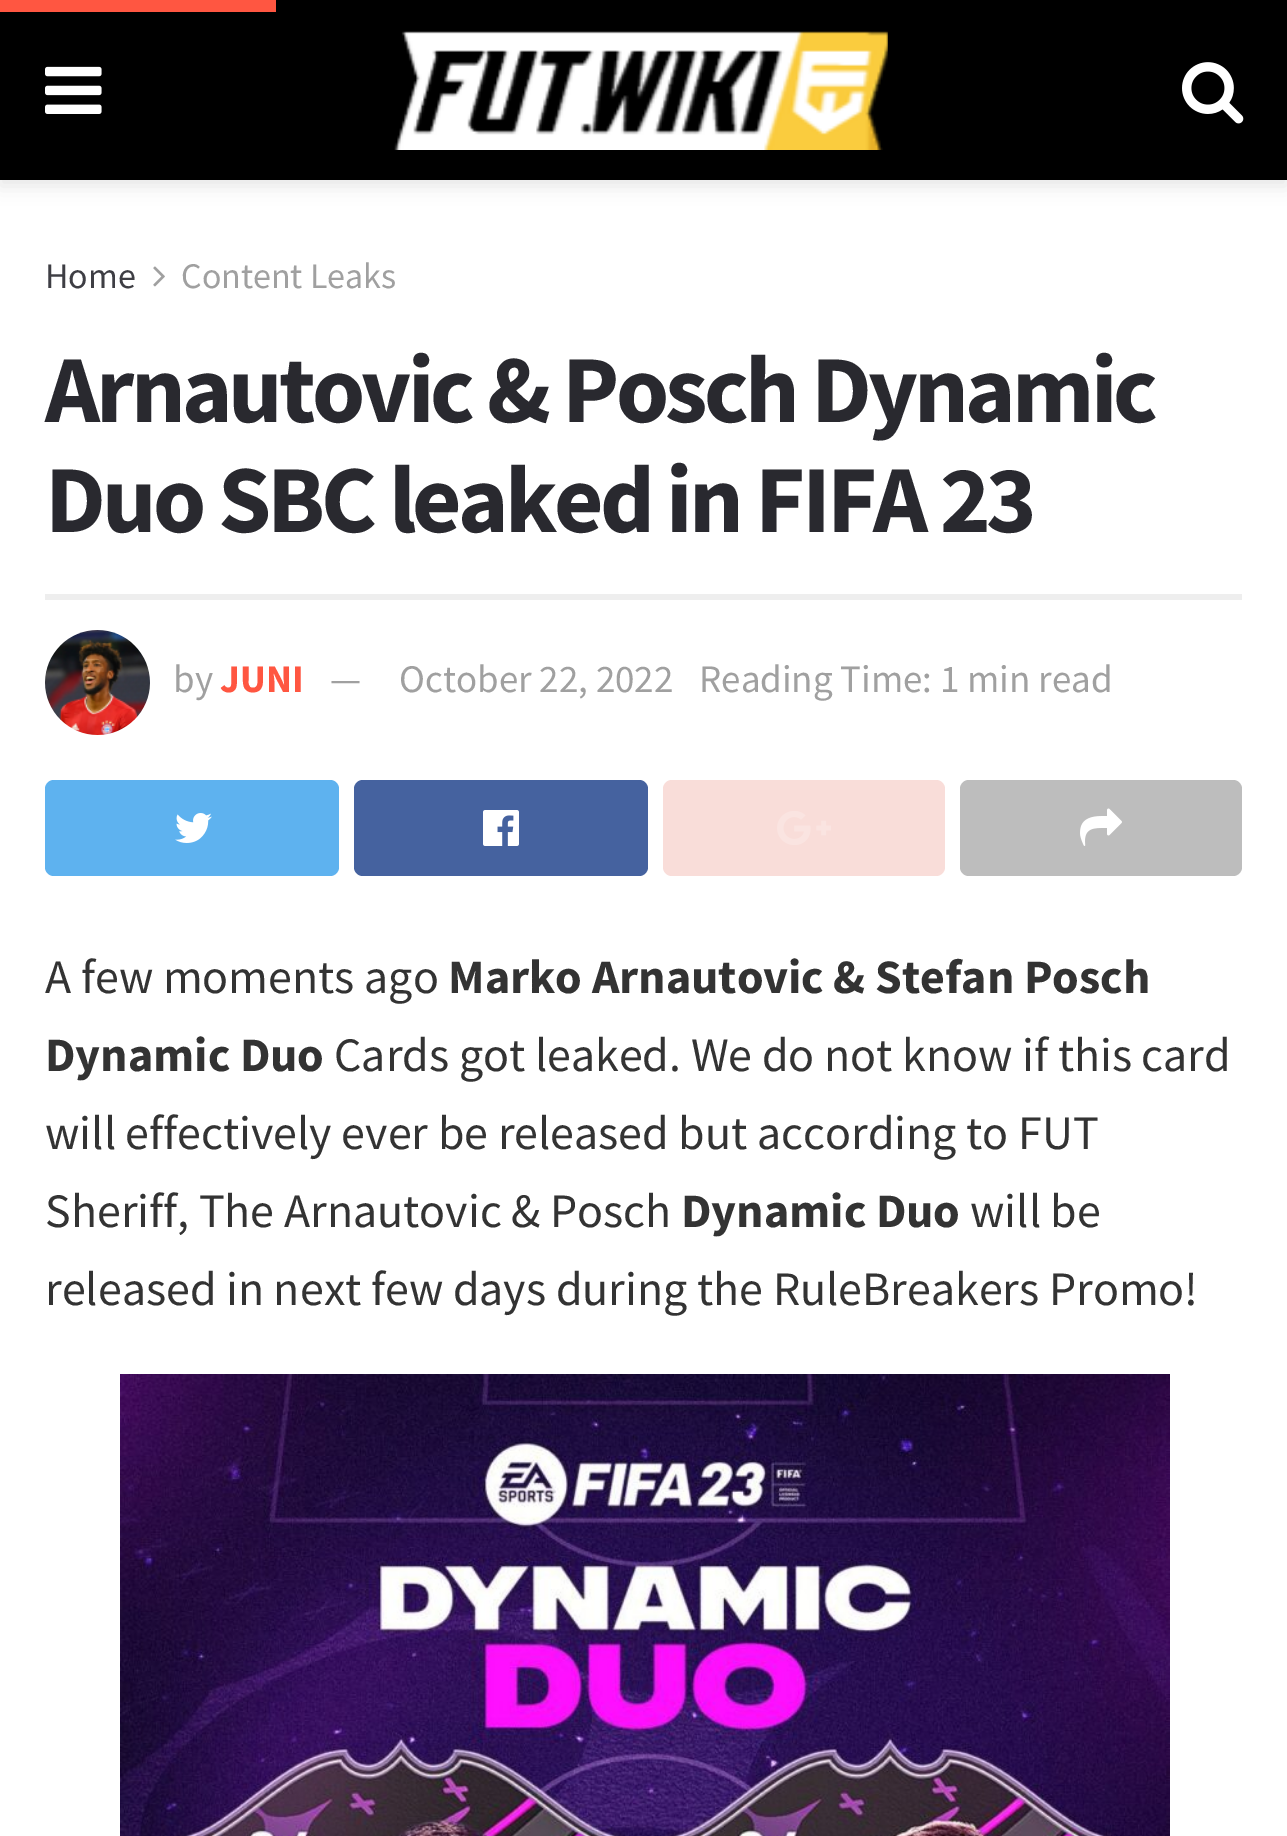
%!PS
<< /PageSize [1287 1836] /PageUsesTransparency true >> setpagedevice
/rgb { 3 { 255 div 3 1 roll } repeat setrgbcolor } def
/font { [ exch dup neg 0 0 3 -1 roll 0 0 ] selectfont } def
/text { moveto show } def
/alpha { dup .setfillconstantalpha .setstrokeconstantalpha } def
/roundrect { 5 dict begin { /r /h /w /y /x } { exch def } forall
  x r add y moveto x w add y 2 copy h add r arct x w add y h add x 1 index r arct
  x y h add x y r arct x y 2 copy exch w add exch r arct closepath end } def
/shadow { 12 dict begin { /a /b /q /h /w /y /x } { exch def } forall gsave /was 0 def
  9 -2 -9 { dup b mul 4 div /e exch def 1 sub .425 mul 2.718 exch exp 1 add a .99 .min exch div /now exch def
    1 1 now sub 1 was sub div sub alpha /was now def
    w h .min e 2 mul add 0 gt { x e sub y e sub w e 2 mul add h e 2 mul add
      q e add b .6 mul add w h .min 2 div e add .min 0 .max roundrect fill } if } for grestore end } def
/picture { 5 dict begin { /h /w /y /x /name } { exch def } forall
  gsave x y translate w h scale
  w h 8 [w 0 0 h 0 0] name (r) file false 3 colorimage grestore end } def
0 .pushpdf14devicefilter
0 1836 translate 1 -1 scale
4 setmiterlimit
255 255 255 rgb
0 0 1287 1836 rectfill
0 0 0 rgb
0 6 1287 180 0 9 0.1 shadow
0 0 1287 180 rectfill
255 86 65 rgb
0 0 276 12 rectfill
(img_01.rgb) 45 66 57 48 picture
(img_02.rgb) 394 31 494 119 picture
(img_03.rgb) 1182 62 62 62 picture
(img_04.rgb) 153 266 12 21 picture
238 238 238 rgb
45 594 1197 6 rectfill
(img_05.rgb) 45 630 105 105 picture
94 178 239 rgb
45 780 294 96 9 roundrect fill
(img_06.rgb) 175 813 37 30 picture
69 98 159 rgb
354 780 294 96 9 roundrect fill
(img_07.rgb) 483 810 36 36 picture
249 221 217 rgb
663 780 282 96 9 roundrect fill
(img_08.rgb) 777 811 54 34 picture
189 189 189 rgb
960 780 282 96 9 roundrect fill
(img_09.rgb) 1080 808 42 38 picture
(img_10.rgb) 120 1374 1050 462 picture
/SourceSansPro-Regular 36 font
62 62 68 rgb
(Home) 45 288 text
160 160 160 rgb
(Content Leaks) 181 288 text
/SourceSansPro-Bold 96 font
41 41 47 rgb
45 422 moveto -3.85 0 (Arnautovic & Posch Dynamic) ashow
45 532 moveto -3.85 0 (Duo SBC leaked in FIFA 23) ashow
/SourceSansPro-Regular 39 font
160 160 160 rgb
(by) 173 692 text
/SourceSansPro-Bold 39 font
255 86 65 rgb
(JUNI) 220 692 text
/SourceSansPro-Regular 39 font
160 160 160 rgb
(—) 330 692 text
(October 22, 2022) 399 692 text
(Reading Time: 1 min read) 699 692 text
/SourceSansPro-Regular 48 font
51 51 51 rgb
(A few moments ago) 45 993 text
/SourceSansPro-Bold 48 font
(Marko Arnautovic & Stefan Posch) 448 993 text
(Dynamic Duo) 45 1071 text
/SourceSansPro-Regular 48 font
(Cards got leaked. We do not know if this card) 334 1071 text
(will effectively ever be released but according to FUT) 45 1149 text
(Sheriff, The Arnautovic & Posch) 45 1227 text
/SourceSansPro-Bold 48 font
(Dynamic Duo) 681 1227 text
/SourceSansPro-Regular 48 font
(will be) 970 1227 text
(released in next few days during the RuleBreakers Promo!) 45 1305 text
.poppdf14devicefilter showpage
